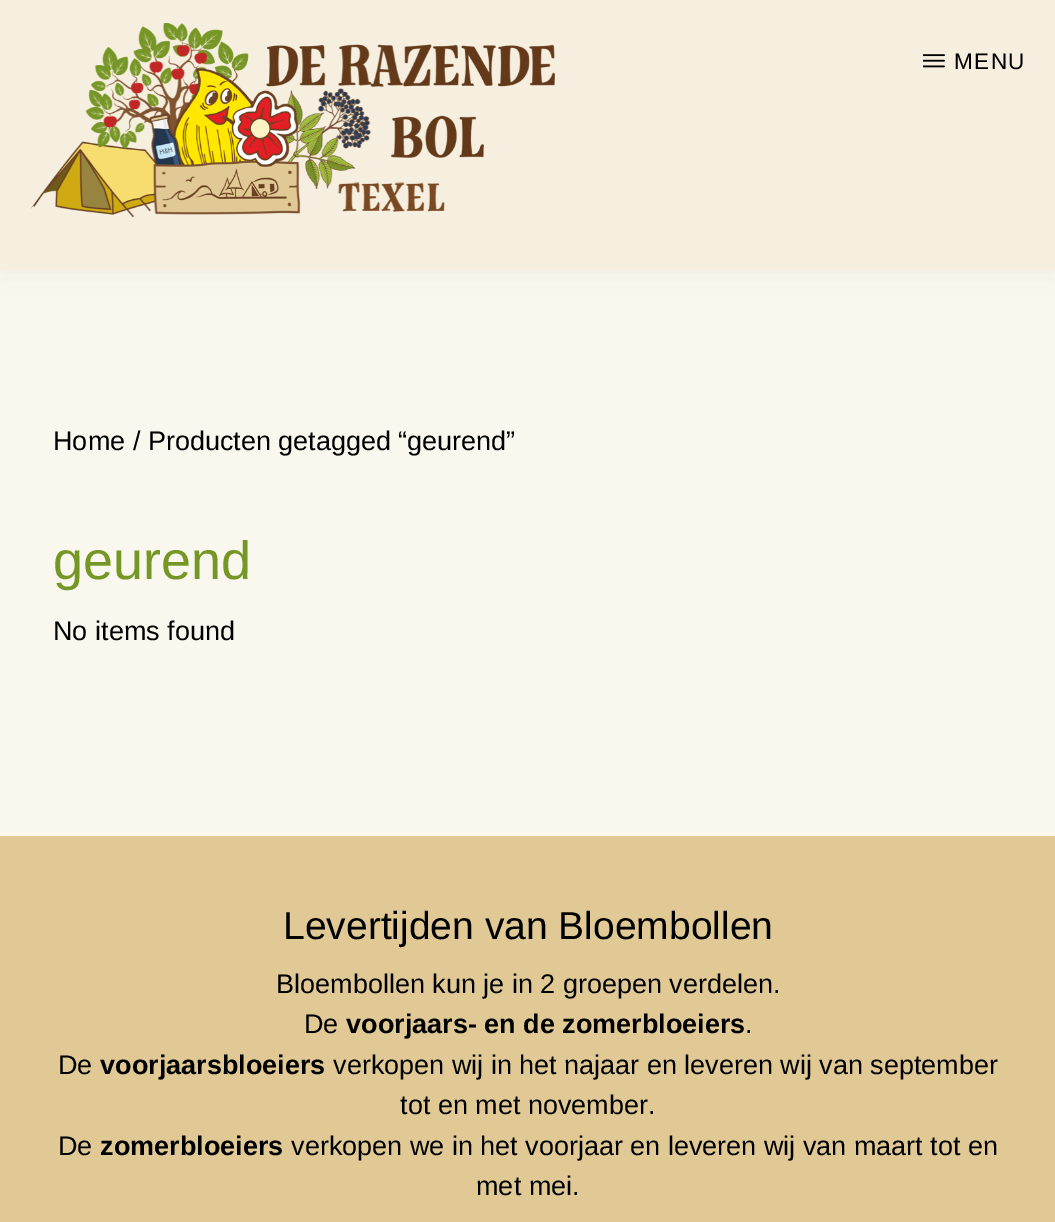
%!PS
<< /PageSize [1055 1222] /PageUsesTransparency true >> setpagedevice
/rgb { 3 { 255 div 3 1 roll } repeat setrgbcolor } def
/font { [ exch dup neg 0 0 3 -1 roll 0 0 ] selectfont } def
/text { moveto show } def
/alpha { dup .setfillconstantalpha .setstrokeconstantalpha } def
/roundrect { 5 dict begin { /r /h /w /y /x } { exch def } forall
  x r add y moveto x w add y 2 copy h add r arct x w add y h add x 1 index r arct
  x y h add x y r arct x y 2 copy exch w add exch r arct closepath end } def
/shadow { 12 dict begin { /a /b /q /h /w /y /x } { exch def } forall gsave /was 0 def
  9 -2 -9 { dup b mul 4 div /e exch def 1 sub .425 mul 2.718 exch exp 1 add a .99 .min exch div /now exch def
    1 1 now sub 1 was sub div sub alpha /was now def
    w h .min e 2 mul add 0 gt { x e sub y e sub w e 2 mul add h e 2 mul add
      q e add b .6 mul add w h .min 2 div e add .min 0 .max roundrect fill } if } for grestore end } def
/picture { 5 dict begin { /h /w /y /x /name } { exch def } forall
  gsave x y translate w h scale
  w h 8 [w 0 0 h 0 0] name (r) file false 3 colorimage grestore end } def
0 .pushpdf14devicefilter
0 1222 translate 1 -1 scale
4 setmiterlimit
250 247 239 rgb
0 0 1055 1222 rectfill
0 0 0 rgb
0 0 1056 270 0 15 0.05 shadow
246 239 223 rgb
0 0 1055 270 rectfill
(img_01.rgb) 30 23 525 195 picture
(img_02.rgb) 923 54 22 14 picture
224 201 149 rgb
0 836 1055 386 rectfill
/LiberationSans-Regular 22.5 font
0 0 0 rgb
954 69 moveto 1.5 0 (MENU) ashow
/LiberationSans-Regular 27 font
(Home / Producten getagged “geurend”) 53 450 text
/LiberationSans-Regular 54 font
117 151 38 rgb
(geurend) 53 579 text
/LiberationSans-Regular 27 font
0 0 0 rgb
(No items found) 53 640 text
/LiberationSans-Regular 39 font
(Levertijden van Bloembollen) 283 939 text
/LiberationSans-Regular 27 font
(Bloembollen kun je in 2 groepen verdelen.) 276 993 text
(De) 304 1033 text
/LiberationSans-Bold 27 font
(voorjaars- en de zomerbloeiers) 346 1033 text
/LiberationSans-Regular 27 font
(.) 745 1033 text
(De) 58 1074 text
/LiberationSans-Bold 27 font
(voorjaarsbloeiers) 100 1074 text
/LiberationSans-Regular 27 font
(verkopen wij in het najaar en leveren wij van september) 333 1074 text
(tot en met november.) 400 1114 text
(De) 58 1155 text
/LiberationSans-Bold 27 font
(zomerbloeiers) 100 1155 text
/LiberationSans-Regular 27 font
(verkopen we in het voorjaar en leveren wij van maart tot en) 291 1155 text
(met mei.) 476 1195 text
.poppdf14devicefilter showpage
